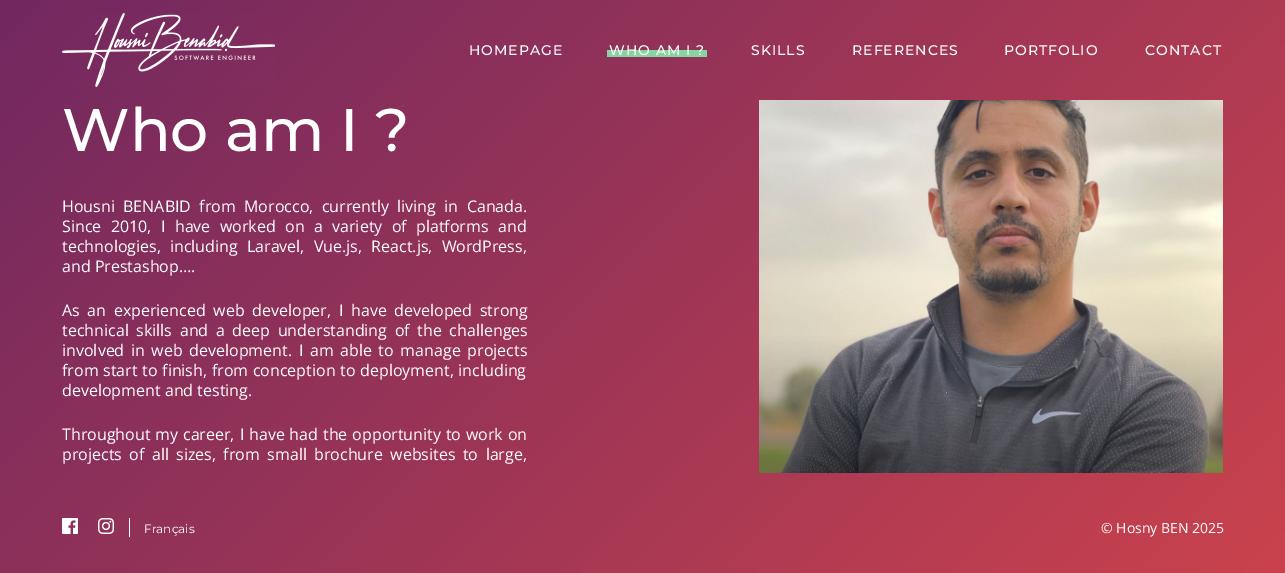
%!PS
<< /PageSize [1285 573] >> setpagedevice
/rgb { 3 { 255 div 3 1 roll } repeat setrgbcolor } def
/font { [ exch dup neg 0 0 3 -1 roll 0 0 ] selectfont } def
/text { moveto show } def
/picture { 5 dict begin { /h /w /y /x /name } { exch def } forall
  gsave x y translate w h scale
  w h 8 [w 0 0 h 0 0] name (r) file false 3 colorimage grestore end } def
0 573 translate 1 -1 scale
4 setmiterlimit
255 255 255 rgb
0 0 1285 573 rectfill
gsave 0 0 moveto 1285 0 rlineto 0 573 rlineto -1285 0 rlineto closepath clip newpath
<< /ShadingType 2 /ColorSpace /DeviceRGB /Coords [178 -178 1107 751] /Extend [true true] /Function << /FunctionType 2 /Domain [0 1] /C0 [0.443 0.157 0.376] /C1 [0.792 0.259 0.302] /N 1 >> >> shfill grestore
(img_01.rgb) 62 13 213 74 picture
134 213 161 rgb
607 50 100 7 rectfill
(img_02.rgb) 759 100 464 373 picture
255 255 255 rgb
129 518 1 19 rectfill
(img_03.rgb) 62 518 16 16 picture
(img_04.rgb) 98 518 16 16 picture
/Montserrat-Medium 14 font
469 55 moveto 1 0 (HOMEPAGE) ashow
609 55 moveto 1 0 (WHO AM I ?) ashow
751 55 moveto 1 0 (SKILLS) ashow
852 55 moveto 1 0 (REFERENCES) ashow
1004 55 moveto 1 0 (PORTFOLIO) ashow
1145 55 moveto 1 0 (CONTACT) ashow
/Montserrat-Medium 60 font
(Who am I ?) 62 151 text
/OpenSans-Regular 16 font
62 212 moveto 4.25 0 32 (Housni BENABID from Morocco, currently living in Canada.) widthshow
62 232 moveto 5.25 0 32 (Since 2010, I have worked on a variety of platforms and) widthshow
62 252 moveto 5 0 32 (technologies, including Laravel, Vue.js, React.js, WordPress,) widthshow
(and Prestashop….) 62 272 text
62 316 moveto 3.5 0 32 (As an experienced web developer, I have developed strong) widthshow
62 336 moveto 3.5 0 32 (technical skills and a deep understanding of the challenges) widthshow
62 356 moveto 2.5 0 32 (involved in web development. I am able to manage projects) widthshow
62 376 moveto 0.5 0 32 (from start to finish, from conception to deployment, including) widthshow
(development and testing.) 62 396 text
62 440 moveto 0.75 0 32 (Throughout my career, I have had the opportunity to work on) widthshow
62 460 moveto 3.25 0 32 (projects of all sizes, from small brochure websites to large,) widthshow
/Montserrat-Regular 12 font
(Français) 144 533 text
/OpenSans-Regular 14 font
(© Hosny BEN 2025) 1101 533 text
showpage
